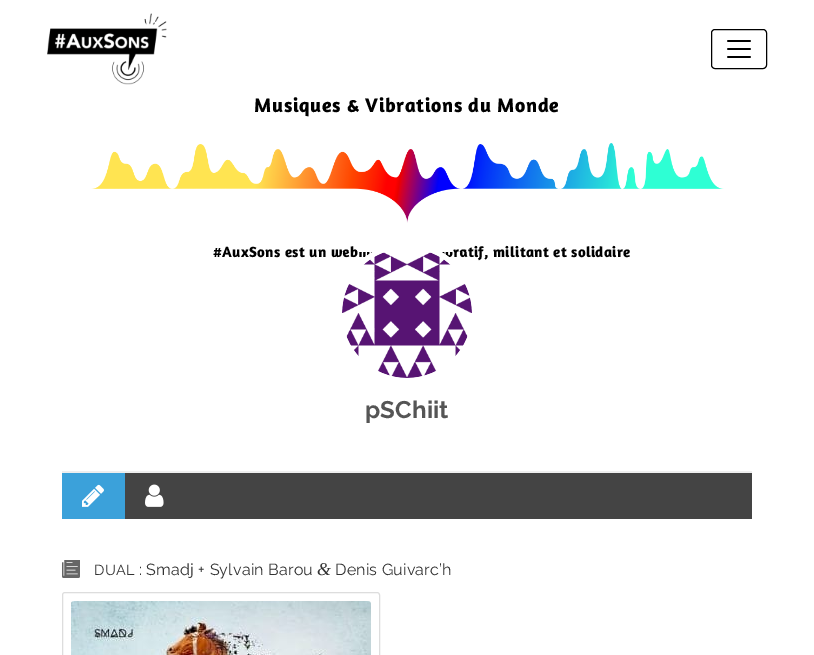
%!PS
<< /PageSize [814 655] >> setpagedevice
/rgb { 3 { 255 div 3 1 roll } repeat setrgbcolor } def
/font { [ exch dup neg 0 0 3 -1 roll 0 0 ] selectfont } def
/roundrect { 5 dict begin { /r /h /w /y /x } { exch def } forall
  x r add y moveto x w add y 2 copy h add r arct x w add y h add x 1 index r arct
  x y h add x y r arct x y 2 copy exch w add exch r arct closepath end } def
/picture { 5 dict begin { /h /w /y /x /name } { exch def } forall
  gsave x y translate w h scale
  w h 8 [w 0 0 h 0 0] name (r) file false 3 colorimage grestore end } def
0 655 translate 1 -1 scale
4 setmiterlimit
255 255 255 rgb
0 0 814 655 rectfill
(img_01.rgb) 47 13 120 72 picture
0 0 0 rgb
711.5 29.5 55 39 3.5 roundrect stroke
(img_02.rgb) 727 40 24 18 picture
(img_03.rgb) 91 143 633 80 picture
238 238 238 rgb
62 471 690 2 rectfill
68 68 68 rgb
125 473 627 46 rectfill
59 161 218 rgb
62 473 63 46 rectfill
(img_05.rgb) 82 484 22 23 picture
(img_06.rgb) 145 484 19 23 picture
(img_07.rgb) 62 560 18 18 picture
221 221 221 rgb
62.5 592.5 317 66 2.5 roundrect stroke
(img_08.rgb) 71 601 300 54 picture
/Amaranth-Bold 20 font
0 0 0 rgb
254 112 moveto 0.6 0 (Musiques & Vibrations du Monde) ashow
/Amaranth-Bold 15 font
213 257 moveto 0.3 0 (#AuxSons est un web) ashow
453 257 moveto 0.3 0 (ratif, militant et solidaire) ashow
(img_04.rgb) 342 252 130 126 picture
/Raleway-Bold 24 font
85 85 85 rgb
365 418 moveto 0.2 0 (pSChiit) ashow
/Raleway-Regular 14.5 font
51 51 51 rgb
94 575 moveto 0.2 0 (DUAL) ashow
/Raleway-Regular 16 font
139 575 moveto 0.2 0 (: Smadj + Sylvain Barou) ashow
/LiberationSerif-Italic 18 font
317 575 moveto 0.2 0 (&) ashow
/Raleway-Regular 16 font
335 575 moveto 0.2 0 (Denis Guivarc’h) ashow
showpage
